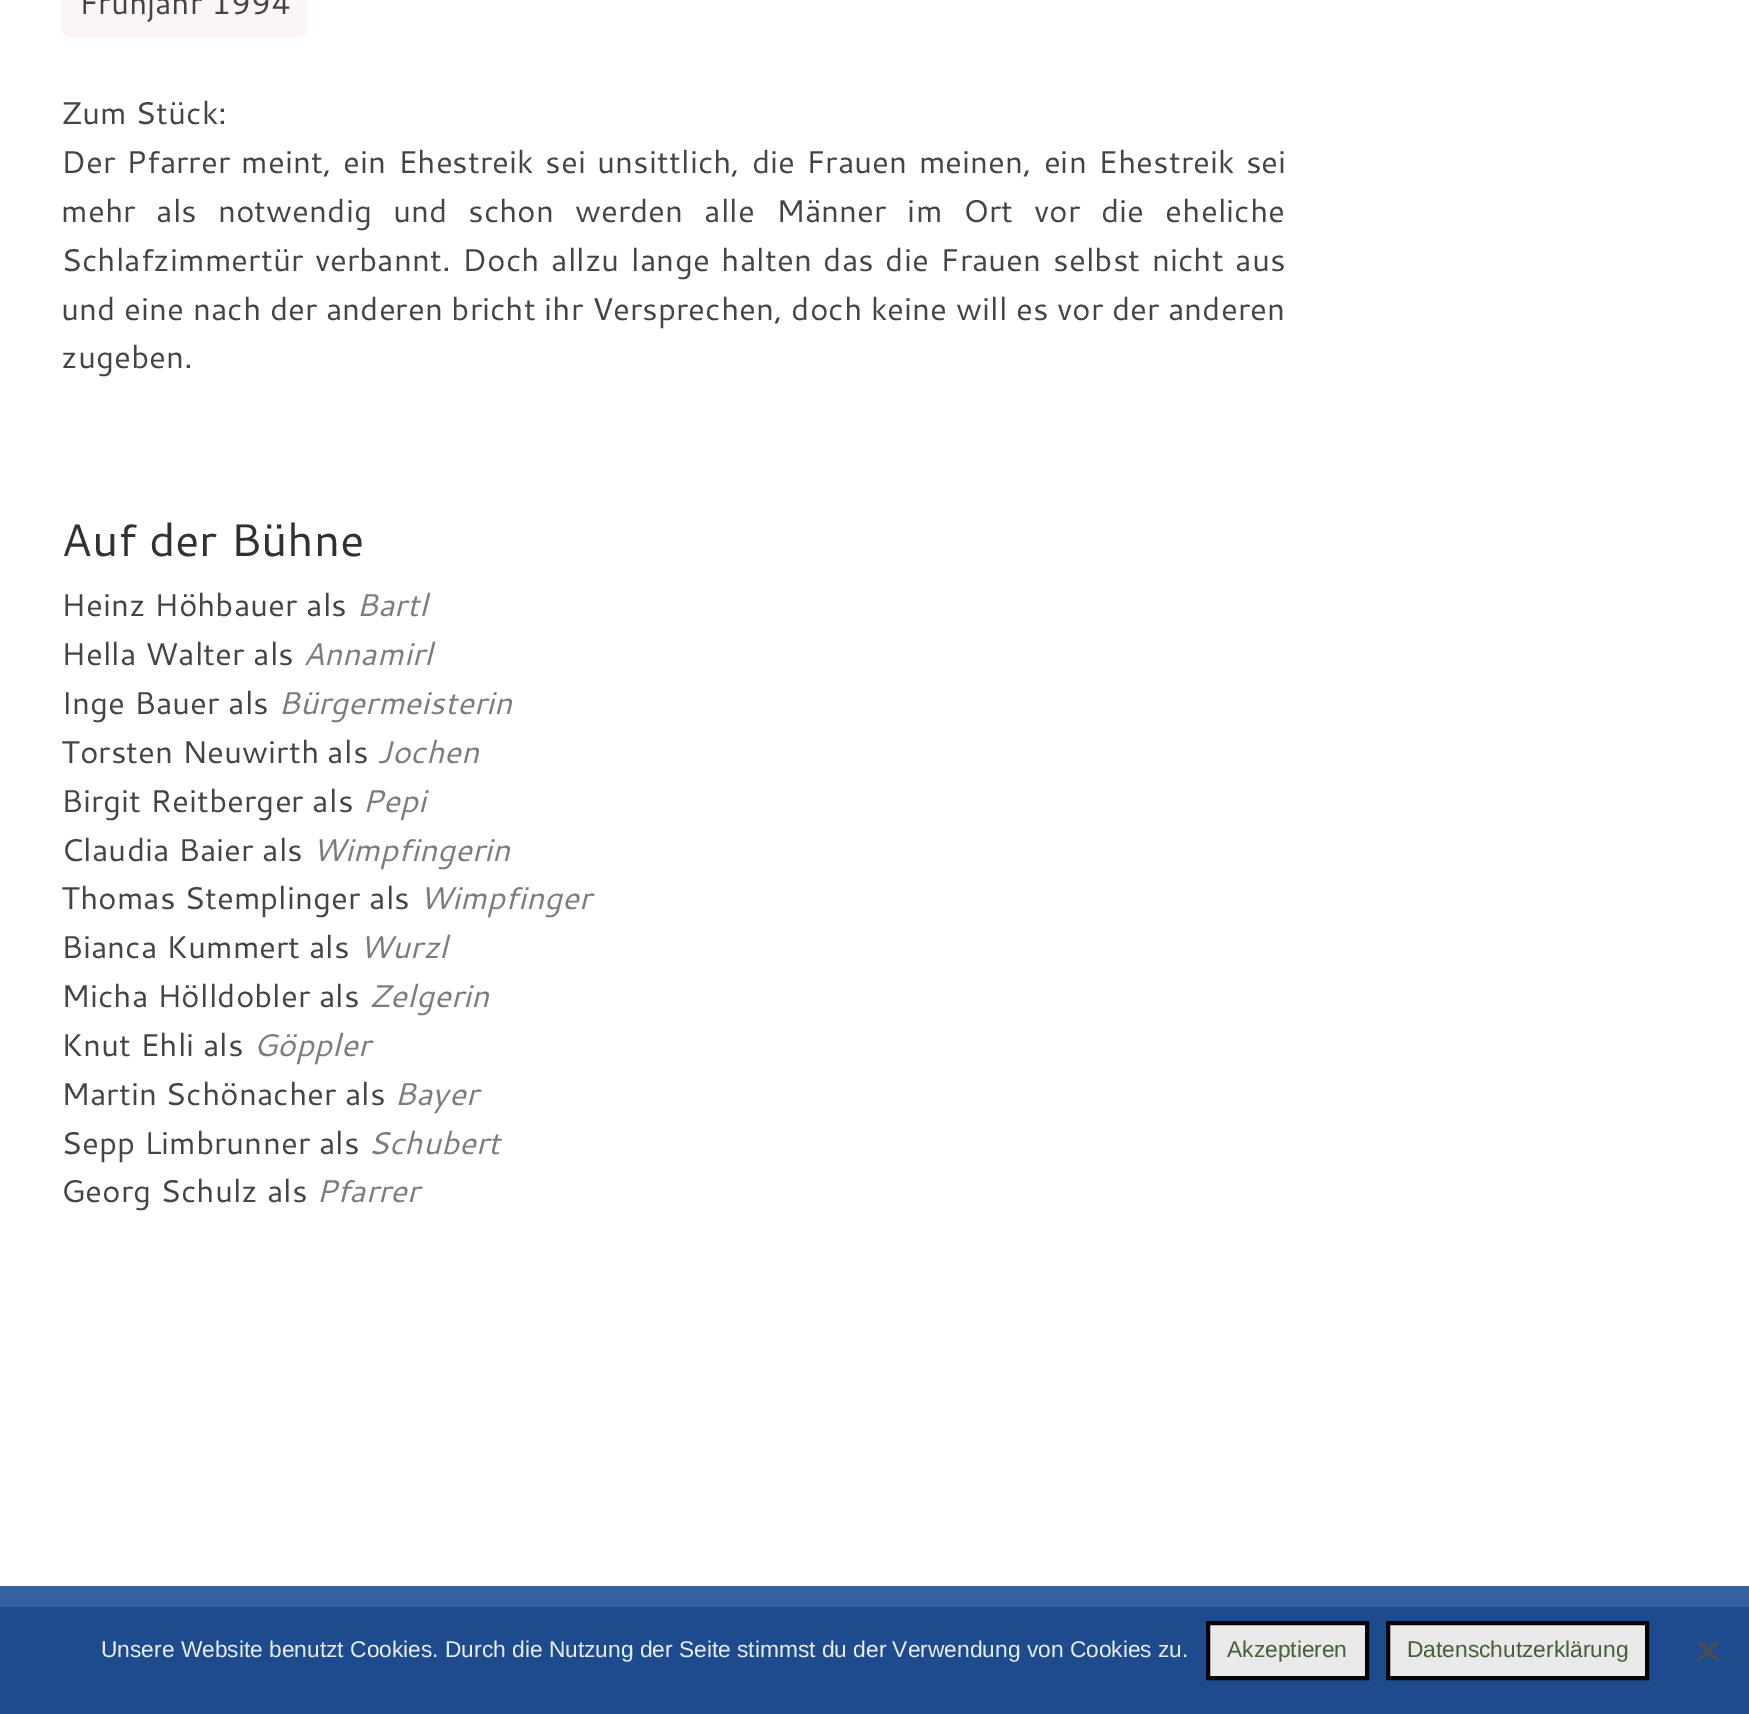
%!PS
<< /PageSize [1749 1714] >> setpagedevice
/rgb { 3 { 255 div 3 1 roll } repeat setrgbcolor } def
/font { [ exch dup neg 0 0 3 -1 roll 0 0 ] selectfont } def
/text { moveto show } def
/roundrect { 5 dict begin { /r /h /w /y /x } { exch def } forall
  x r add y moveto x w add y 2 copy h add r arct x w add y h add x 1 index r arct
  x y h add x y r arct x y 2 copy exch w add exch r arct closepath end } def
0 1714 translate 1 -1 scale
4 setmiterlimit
255 255 255 rgb
0 0 1749 1714 rectfill
52 97 163 rgb
0 1586 1749 21 rectfill
252 245 245 rgb
61 -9 247 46 9 roundrect fill
31 76 143 rgb
0 1607 1749 1 rectfill
30 75 141 rgb
0 1608 1749 106 rectfill
233 233 233 rgb
1208 1623 moveto 159 0 rlineto 0 55 rlineto -159 0 rlineto closepath gsave fill grestore
4 4 4 rgb
4 setlinewidth
stroke
233 233 233 rgb
1388 1623 moveto 259 0 rlineto 0 55 rlineto -259 0 rlineto closepath gsave fill grestore
4 4 4 rgb
stroke
77 77 77 rgb
1716 1640.5 moveto 2.5 2.5 rlineto -18.5 18.5 rlineto -2.5 -2.5 rlineto closepath fill
1697.5 1643 moveto 2.5 -2.5 rlineto 18.5 18.5 rlineto -2.5 2.5 rlineto closepath fill
/Cantarell-Regular 31.5 font
68 68 68 rgb
(Frühjahr 1994) 79 14 text
(Zum Stück:) 61 124 text
61 173 moveto 2.75 0 32 (Der Pfarrer meint, ein Ehestreik sei unsittlich, die Frauen meinen, ein Ehestreik sei) widthshow
61 222 moveto 12.25 0 32 (mehr als notwendig und schon werden alle Männer im Ort vor die eheliche) widthshow
61 271 moveto 3.1 0 32 (Schlafzimmertür verbannt. Doch allzu lange halten das die Frauen selbst nicht aus) widthshow
(und eine nach der anderen bricht ihr Versprechen, doch keine will es vor der anderen) 61 320 text
(zugeben.) 61 368 text
/Cantarell-Regular 45.5 font
48 49 51 rgb
(Auf der Bühne) 61 556 text
/Cantarell-Regular 31.5 font
68 68 68 rgb
(Heinz Höhbauer als) 61 616 text
/Cantarell-Italic 31.5 font
124 124 124 rgb
(Bartl) 356 616 text
/Cantarell-Regular 31.5 font
68 68 68 rgb
(Hella Walter als) 61 665 text
/Cantarell-Italic 31.5 font
124 124 124 rgb
(Annamirl) 303 665 text
/Cantarell-Regular 31.5 font
68 68 68 rgb
(Inge Bauer als) 61 714 text
/Cantarell-Italic 31.5 font
124 124 124 rgb
(Bürgermeisterin) 278 714 text
/Cantarell-Regular 31.5 font
68 68 68 rgb
(Torsten Neuwirth als) 61 763 text
/Cantarell-Italic 31.5 font
124 124 124 rgb
(Jochen) 377 763 text
/Cantarell-Regular 31.5 font
68 68 68 rgb
(Birgit Reitberger als) 61 812 text
/Cantarell-Italic 31.5 font
124 124 124 rgb
(Pepi) 362 812 text
/Cantarell-Regular 31.5 font
68 68 68 rgb
(Claudia Baier als) 61 861 text
/Cantarell-Italic 31.5 font
124 124 124 rgb
(Wimpfingerin) 312 861 text
/Cantarell-Regular 31.5 font
68 68 68 rgb
(Thomas Stemplinger als) 61 909 text
/Cantarell-Italic 31.5 font
124 124 124 rgb
(Wimpfinger) 419 909 text
/Cantarell-Regular 31.5 font
68 68 68 rgb
(Bianca Kummert als) 61 958 text
/Cantarell-Italic 31.5 font
124 124 124 rgb
(Wurzl) 359 958 text
/Cantarell-Regular 31.5 font
68 68 68 rgb
(Micha Hölldobler als) 61 1007 text
/Cantarell-Italic 31.5 font
124 124 124 rgb
(Zelgerin) 369 1007 text
/Cantarell-Regular 31.5 font
68 68 68 rgb
(Knut Ehli als) 61 1056 text
/Cantarell-Italic 31.5 font
124 124 124 rgb
(Göppler) 253 1056 text
/Cantarell-Regular 31.5 font
68 68 68 rgb
(Martin Schönacher als) 61 1105 text
/Cantarell-Italic 31.5 font
124 124 124 rgb
(Bayer) 394 1105 text
/Cantarell-Regular 31.5 font
68 68 68 rgb
(Sepp Limbrunner als) 61 1154 text
/Cantarell-Italic 31.5 font
124 124 124 rgb
(Schubert) 368 1154 text
/Cantarell-Regular 31.5 font
68 68 68 rgb
(Georg Schulz als) 61 1202 text
/Cantarell-Italic 31.5 font
124 124 124 rgb
(Pfarrer) 316 1202 text
/LiberationSans-Regular 22.75 font
232 237 244 rgb
(Unsere Website benutzt Cookies. Durch die Nutzung der Seite stimmst du der Verwendung von Cookies zu.) 101 1657 text
71 95 59 rgb
(Akzeptieren) 1227 1657 text
(Datenschutzerklärung) 1407 1657 text
showpage
